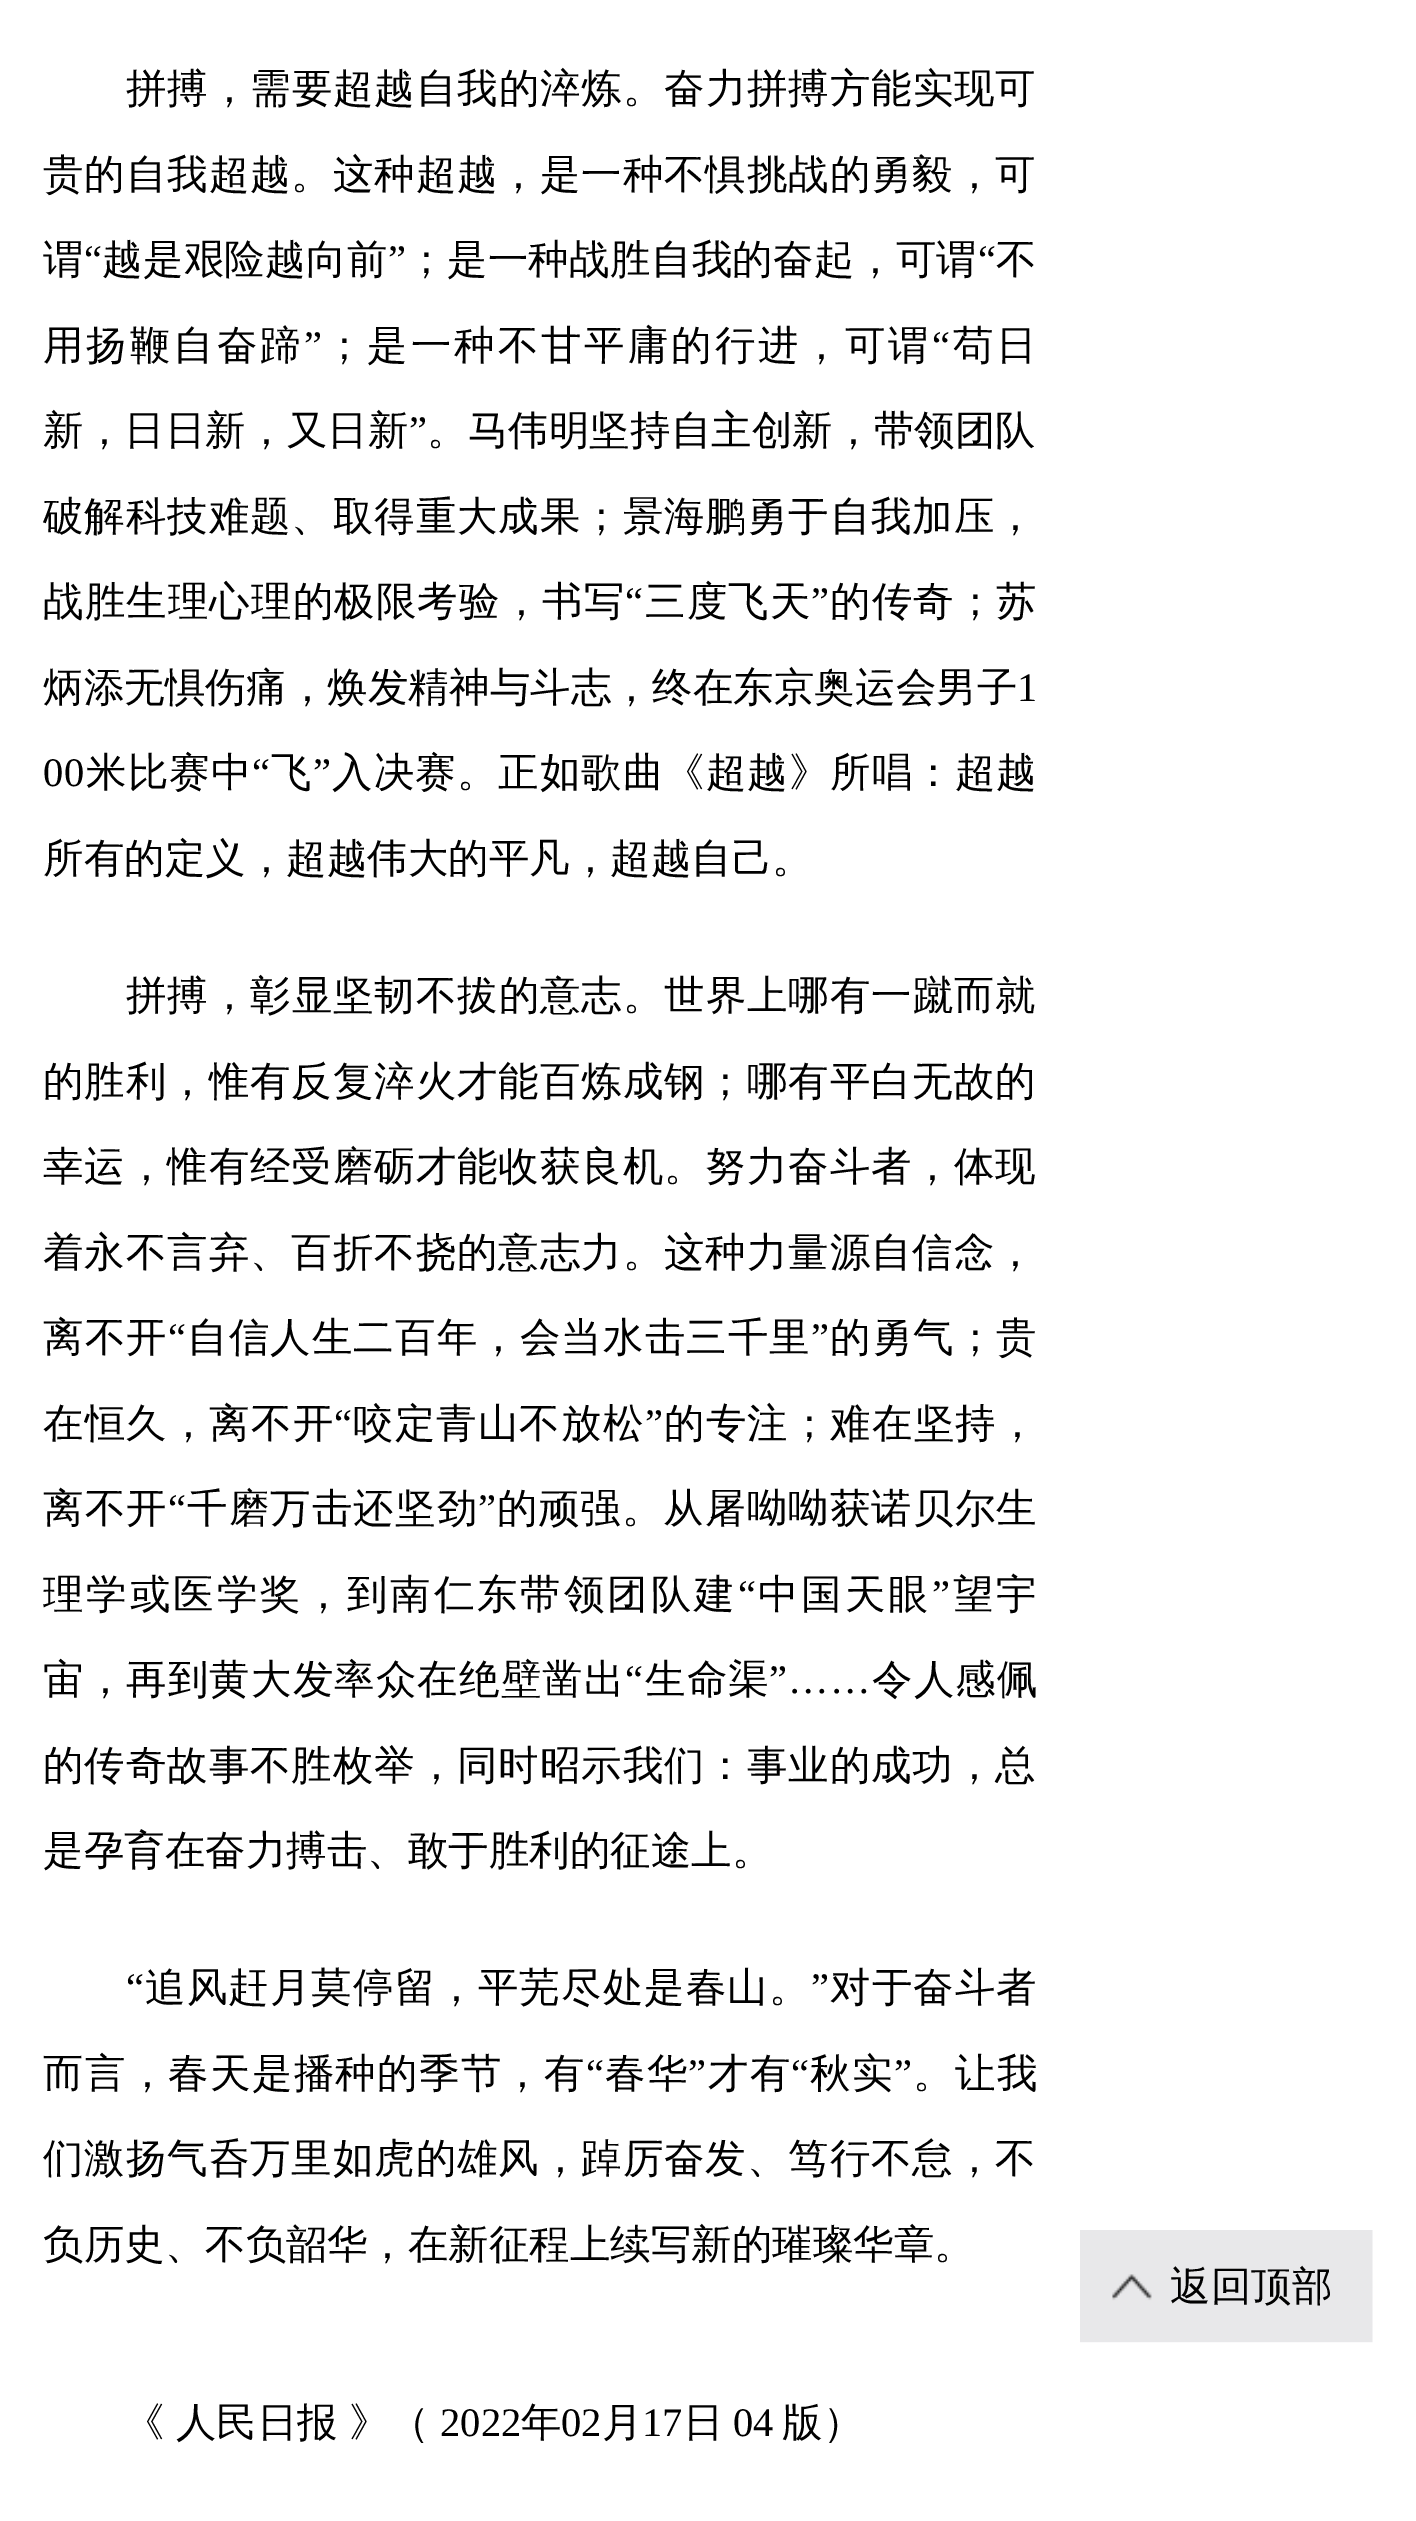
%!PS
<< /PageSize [1416 2521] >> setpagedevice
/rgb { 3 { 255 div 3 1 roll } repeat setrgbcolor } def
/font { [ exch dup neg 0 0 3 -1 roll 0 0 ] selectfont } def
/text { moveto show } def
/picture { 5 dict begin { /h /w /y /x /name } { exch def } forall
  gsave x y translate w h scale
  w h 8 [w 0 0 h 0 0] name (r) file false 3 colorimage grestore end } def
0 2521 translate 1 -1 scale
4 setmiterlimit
255 255 255 rgb
0 0 1416 2521 rectfill
(img_01.rgb) 1080 2230 293 113 picture
/WenQuanYiZenHei-Medium 40.5 font
0 0 0 rgb
126 102 moveto 0.9 0 (拼搏，需要超越自我的淬炼。奋力拼搏方能实现可) ashow
43 188 moveto 0.9 0 (贵的自我超越。这种超越，是一种不惧挑战的勇毅，可) ashow
43 273 moveto 0.3 0 (谓) ashow
/LiberationSerif-Regular 40.5 font
84 273 moveto 0.3 0 (“) ashow
/WenQuanYiZenHei-Medium 40.5 font
102 273 moveto 0.3 0 (越是艰险越向前) ashow
/LiberationSerif-Regular 40.5 font
388 273 moveto 0.3 0 (”) ashow
/WenQuanYiZenHei-Medium 40.5 font
406 273 moveto 0.3 0 (；是一种战胜自我的奋起，可谓) ashow
/LiberationSerif-Regular 40.5 font
978 273 moveto 0.3 0 (“) ashow
/WenQuanYiZenHei-Medium 40.5 font
996 273 moveto 0.3 0 (不) ashow
43 359 moveto 2.9 0 (用扬鞭自奋蹄) ashow
/LiberationSerif-Regular 40.5 font
304 359 moveto 2.9 0 (”) ashow
/WenQuanYiZenHei-Medium 40.5 font
324 359 moveto 2.9 0 (；是一种不甘平庸的行进，可谓) ashow
/LiberationSerif-Regular 40.5 font
932 359 moveto 2.9 0 (“) ashow
/WenQuanYiZenHei-Medium 40.5 font
953 359 moveto 2.9 0 (苟日) ashow
43 444 moveto 0.1 0 (新，日日新，又日新) ashow
/LiberationSerif-Regular 40.5 font
409 444 moveto 0.1 0 (”) ashow
/WenQuanYiZenHei-Medium 40.5 font
427 444 moveto 0.1 0 (。马伟明坚持自主创新，带领团队) ashow
43 530 moveto 0.9 0 (破解科技难题、取得重大成果；景海鹏勇于自我加压，) ashow
43 615 moveto 1.1 0 (战胜生理心理的极限考验，书写) ashow
/LiberationSerif-Regular 40.5 font
625 615 moveto 1.1 0 (“) ashow
/WenQuanYiZenHei-Medium 40.5 font
645 615 moveto 1.1 0 (三度飞天) ashow
/LiberationSerif-Regular 40.5 font
811 615 moveto 1.1 0 (”) ashow
/WenQuanYiZenHei-Medium 40.5 font
830 615 moveto 1.1 0 (的传奇；苏) ashow
43 701 moveto 0.1 0 (炳添无惧伤痛，焕发精神与斗志，终在东京奥运会男子) ashow
/LiberationSerif-Regular 40.5 font
1017 701 moveto 0.1 0 (1) ashow
43 786 moveto 1 0 (00) ashow
/WenQuanYiZenHei-Medium 40.5 font
86 786 moveto 1 0 (米比赛中) ashow
/LiberationSerif-Regular 40.5 font
252 786 moveto 1 0 (“) ashow
/WenQuanYiZenHei-Medium 40.5 font
271 786 moveto 1 0 (飞) ashow
/LiberationSerif-Regular 40.5 font
313 786 moveto 1 0 (”) ashow
/WenQuanYiZenHei-Medium 40.5 font
332 786 moveto 1 0 (入决赛。正如歌曲《超越》所唱：超越) ashow
(所有的定义，超越伟大的平凡，超越自己。) 43 872 text
126 1009 moveto 0.9 0 (拼搏，彰显坚韧不拔的意志。世界上哪有一蹴而就) ashow
43 1095 moveto 0.9 0 (的胜利，惟有反复淬火才能百炼成钢；哪有平白无故的) ashow
43 1180 moveto 0.9 0 (幸运，惟有经受磨砺才能收获良机。努力奋斗者，体现) ashow
43 1266 moveto 0.9 0 (着永不言弃、百折不挠的意志力。这种力量源自信念，) ashow
43 1351 moveto 1.1 0 (离不开) ashow
/LiberationSerif-Regular 40.5 font
168 1351 moveto 1.1 0 (“) ashow
/WenQuanYiZenHei-Medium 40.5 font
187 1351 moveto 1.1 0 (自信人生二百年，会当水击三千里) ashow
/LiberationSerif-Regular 40.5 font
811 1351 moveto 1.1 0 (”) ashow
/WenQuanYiZenHei-Medium 40.5 font
830 1351 moveto 1.1 0 (的勇气；贵) ashow
43 1437 moveto 1.1 0 (在恒久，离不开) ashow
/LiberationSerif-Regular 40.5 font
334 1437 moveto 1.1 0 (“) ashow
/WenQuanYiZenHei-Medium 40.5 font
353 1437 moveto 1.1 0 (咬定青山不放松) ashow
/LiberationSerif-Regular 40.5 font
645 1437 moveto 1.1 0 (”) ashow
/WenQuanYiZenHei-Medium 40.5 font
664 1437 moveto 1.1 0 (的专注；难在坚持，) ashow
43 1522 moveto 1.1 0 (离不开) ashow
/LiberationSerif-Regular 40.5 font
168 1522 moveto 1.1 0 (“) ashow
/WenQuanYiZenHei-Medium 40.5 font
187 1522 moveto 1.1 0 (千磨万击还坚劲) ashow
/LiberationSerif-Regular 40.5 font
478 1522 moveto 1.1 0 (”) ashow
/WenQuanYiZenHei-Medium 40.5 font
497 1522 moveto 1.1 0 (的顽强。从屠呦呦获诺贝尔生) ashow
43 1608 moveto 2.9 0 (理学或医学奖，到南仁东带领团队建) ashow
/LiberationSerif-Regular 40.5 font
738 1608 moveto 2.9 0 (“) ashow
/WenQuanYiZenHei-Medium 40.5 font
758 1608 moveto 2.9 0 (中国天眼) ashow
/LiberationSerif-Regular 40.5 font
932 1608 moveto 2.9 0 (”) ashow
/WenQuanYiZenHei-Medium 40.5 font
953 1608 moveto 2.9 0 (望宇) ashow
43 1693 moveto 1.1 0 (宙，再到黄大发率众在绝壁凿出) ashow
/LiberationSerif-Regular 40.5 font
625 1693 moveto 1.1 0 (“) ashow
/WenQuanYiZenHei-Medium 40.5 font
645 1693 moveto 1.1 0 (生命渠) ashow
/LiberationSerif-Regular 40.5 font
769 1693 moveto 1.1 0 (”……) ashow
/WenQuanYiZenHei-Medium 40.5 font
872 1693 moveto 1.1 0 (令人感佩) ashow
43 1779 moveto 0.9 0 (的传奇故事不胜枚举，同时昭示我们：事业的成功，总) ashow
(是孕育在奋力搏击、敢于胜利的征途上。) 43 1864 text
/LiberationSerif-Regular 40.5 font
126 2001 moveto 1.1 0 (“) ashow
/WenQuanYiZenHei-Medium 40.5 font
145 2001 moveto 1.1 0 (追风赶月莫停留，平芜尽处是春山。) ashow
/LiberationSerif-Regular 40.5 font
811 2001 moveto 1.1 0 (”) ashow
/WenQuanYiZenHei-Medium 40.5 font
830 2001 moveto 1.1 0 (对于奋斗者) ashow
43 2087 moveto 1.25 0 (而言，春天是播种的季节，有) ashow
/LiberationSerif-Regular 40.5 font
586 2087 moveto 1.25 0 (“) ashow
/WenQuanYiZenHei-Medium 40.5 font
605 2087 moveto 1.25 0 (春华) ashow
/LiberationSerif-Regular 40.5 font
688 2087 moveto 1.25 0 (”) ashow
/WenQuanYiZenHei-Medium 40.5 font
708 2087 moveto 1.25 0 (才有) ashow
/LiberationSerif-Regular 40.5 font
791 2087 moveto 1.25 0 (“) ashow
/WenQuanYiZenHei-Medium 40.5 font
810 2087 moveto 1.25 0 (秋实) ashow
/LiberationSerif-Regular 40.5 font
894 2087 moveto 1.25 0 (”) ashow
/WenQuanYiZenHei-Medium 40.5 font
913 2087 moveto 1.25 0 (。让我) ashow
43 2172 moveto 0.9 0 (们激扬气呑万里如虎的雄风，踔厉奋发、笃行不怠，不) ashow
(负历史、不负韶华，在新征程上续写新的璀璨华章。) 43 2258 text
124 2436 moveto -1 0 32 (《 人民日报 》（) widthshow
/LiberationSerif-Regular 40.5 font
(2022) 440 2436 text
/WenQuanYiZenHei-Medium 40.5 font
(年) 521 2436 text
/LiberationSerif-Regular 40.5 font
(02) 561 2436 text
/WenQuanYiZenHei-Medium 40.5 font
(月) 602 2436 text
/LiberationSerif-Regular 40.5 font
(17) 642 2436 text
/WenQuanYiZenHei-Medium 40.5 font
(日) 683 2436 text
/LiberationSerif-Regular 40.5 font
(04) 733 2436 text
/WenQuanYiZenHei-Medium 40.5 font
(版）) 782 2436 text
(返回顶部) 1170 2300 text
showpage
